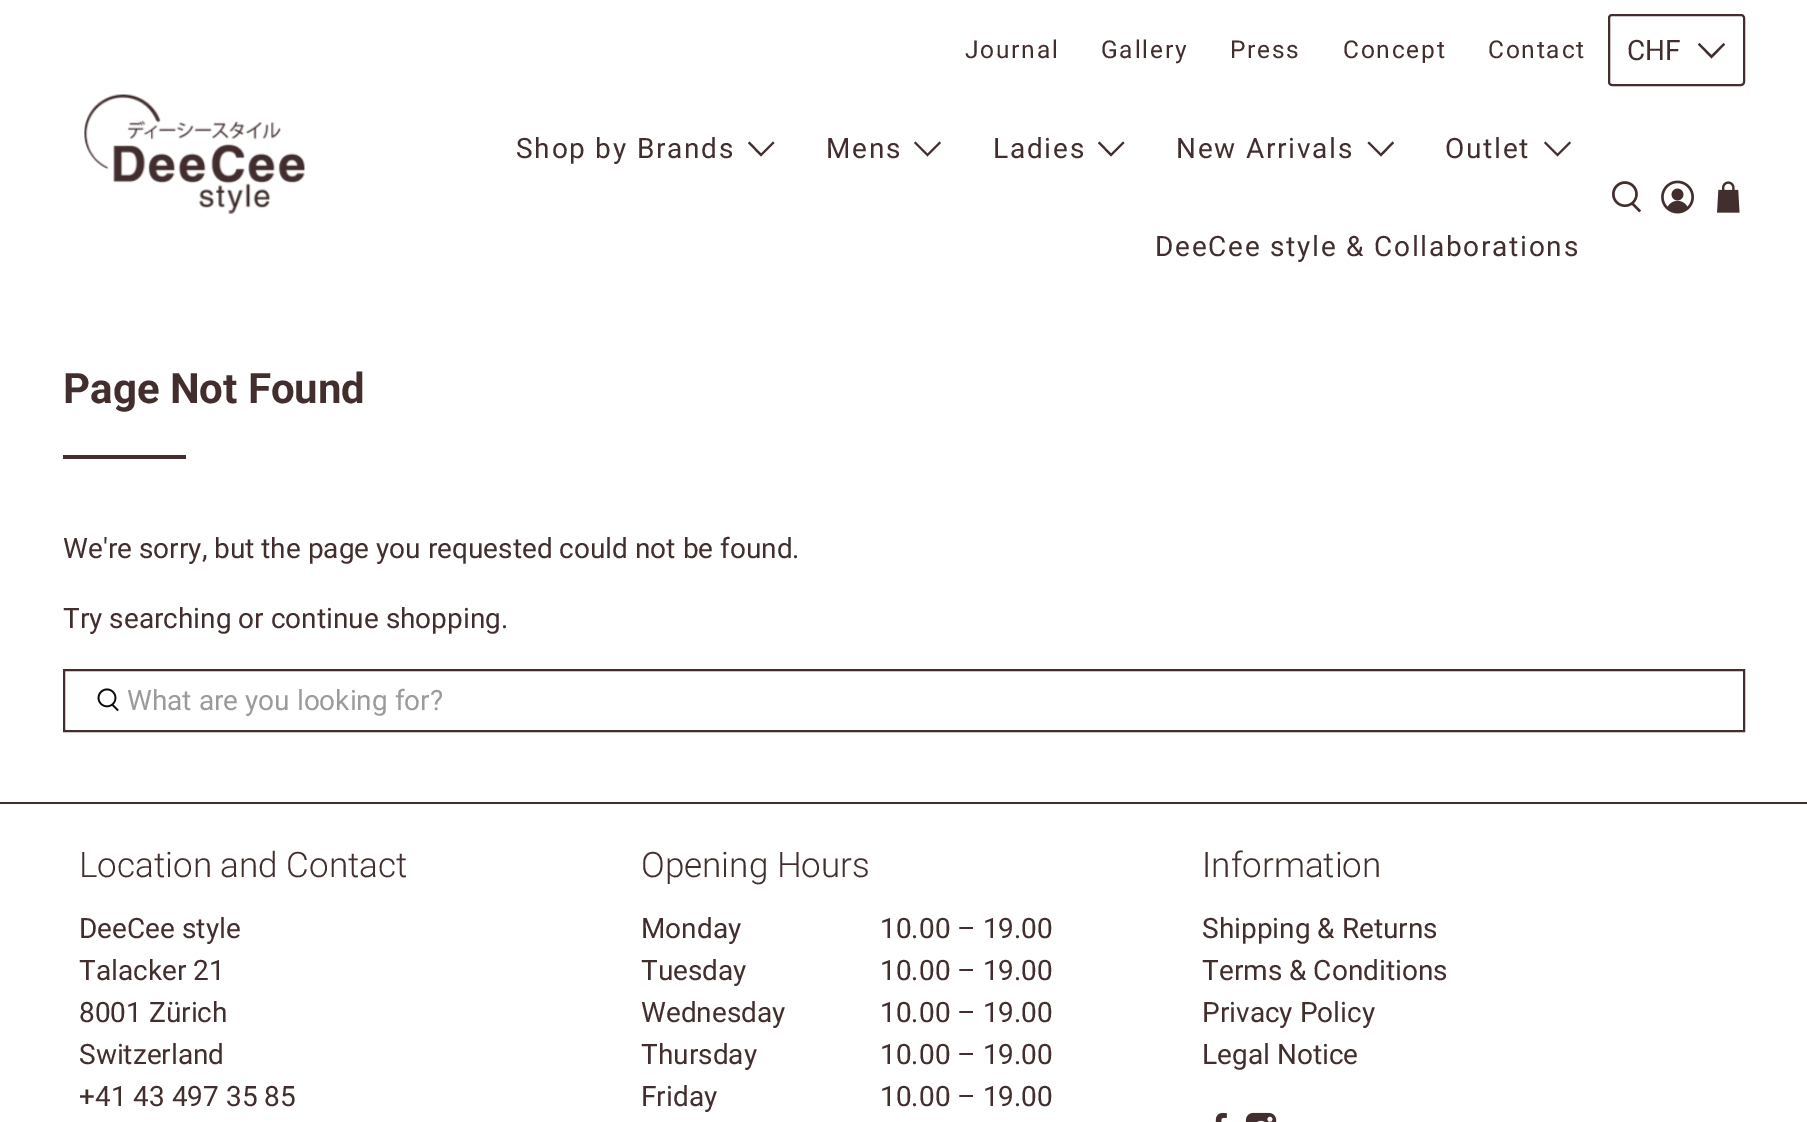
%!PS
<< /PageSize [1807 1122] >> setpagedevice
/rgb { 3 { 255 div 3 1 roll } repeat setrgbcolor } def
/font { [ exch dup neg 0 0 3 -1 roll 0 0 ] selectfont } def
/text { moveto show } def
/roundrect { 5 dict begin { /r /h /w /y /x } { exch def } forall
  x r add y moveto x w add y 2 copy h add r arct x w add y h add x 1 index r arct
  x y h add x y r arct x y 2 copy exch w add exch r arct closepath end } def
/picture { 5 dict begin { /h /w /y /x /name } { exch def } forall
  gsave x y translate w h scale
  w h 8 [w 0 0 h 0 0] name (r) file false 3 colorimage grestore end } def
0 1122 translate 1 -1 scale
4 setmiterlimit
255 255 255 rgb
0 0 1807 1122 rectfill
67 46 46 rgb
2 setlinewidth
1609 15 135 70 3 roundrect stroke
1711.5 58.5 moveto -13.5 -14 rlineto 1.5 -1.5 rlineto 12 12 rlineto 12 -12 rlineto 1.5 1.5 rlineto closepath fill
(img_01.rgb) 84 94 221 120 picture
761 156.5 moveto -13 -13.5 rlineto 1.5 -1.5 rlineto 11.5 12 rlineto 12 -12 rlineto 1.5 1.5 rlineto closepath fill
927.5 156.5 moveto -13.5 -13.5 rlineto 1.5 -1.5 rlineto 12 12 rlineto 12 -12 rlineto 1.5 1.5 rlineto closepath fill
1111 156.5 moveto -13 -13.5 rlineto 1.5 -1.5 rlineto 11.5 12 rlineto 12 -12 rlineto 1.5 1.5 rlineto closepath fill
1381 156.5 moveto -13.5 -13.5 rlineto 1.5 -1.5 rlineto 12 12 rlineto 11.5 -12 rlineto 1.5 1.5 rlineto closepath fill
1557.5 156.5 moveto -13.5 -13.5 rlineto 1.5 -1.5 rlineto 12 12 rlineto 12 -12 rlineto 1.5 1.5 rlineto closepath fill
(img_02.rgb) 1612 181 30 32 picture
(img_03.rgb) 1661 180 33 34 picture
(img_04.rgb) 1717 181 23 32 picture
63 455 123 4 rectfill
64 670 1680 61 rectstroke
(img_05.rgb) 97 688 22 24 picture
0 802 1807 2 rectfill
(img_06.rgb) 1215 1112 12 10 picture
(img_07.rgb) 1245 1112 32 10 picture
/Roboto-Regular 24.5 font
965 58 moveto 1.75 0 (Journal) ashow
1101 58 moveto 1.75 0 (Gallery) ashow
1230 58 moveto 1.75 0 (Press) ashow
1343 58 moveto 1.75 0 (Concept) ashow
1488 58 moveto 1.75 0 (Contact) ashow
/Roboto-Regular 28 font
(CHF) 1627 60 text
516 158 moveto 1.75 0 (Shop by Brands) ashow
826 158 moveto 1.75 0 (Mens) ashow
993 158 moveto 1.75 0 (Ladies) ashow
1176 158 moveto 1.75 0 (New Arrivals) ashow
1445 158 moveto 1.75 0 (Outlet) ashow
1155 256 moveto 1.75 0 (DeeCee style & Collaborations) ashow
/Roboto-Bold 42 font
(Page Not Found) 63 403 text
/Roboto-Regular 28 font
(We're sorry, but the page you requested could not be found.) 63 558 text
(Try searching or continue shopping.) 63 628 text
155 155 155 rgb
(What are you looking for?) 127 710 text
/Roboto-Light 35 font
67 46 46 rgb
(Location and Contact) 79 877 text
/Roboto-Regular 28 font
(DeeCee style) 79 938 text
(Talacker 21) 79 980 text
(8001 Zürich) 79 1022 text
(Switzerland) 79 1064 text
(+41 43 497 35 85) 79 1106 text
/Roboto-Light 35 font
(Opening Hours) 641 877 text
/Roboto-Regular 28 font
(Monday) 641 938 text
(10.00 – 19.00) 880 938 text
(Tuesday) 641 980 text
(10.00 – 19.00) 880 980 text
(Wednesday) 641 1022 text
(10.00 – 19.00) 880 1022 text
(Thursday) 641 1064 text
(10.00 – 19.00) 880 1064 text
(Friday) 641 1106 text
(10.00 – 19.00) 880 1106 text
/Roboto-Light 35 font
(Information) 1202 877 text
/Roboto-Regular 28 font
(Shipping & Returns) 1202 938 text
(Terms & Conditions) 1202 980 text
(Privacy Policy) 1202 1022 text
(Legal Notice) 1202 1064 text
showpage
